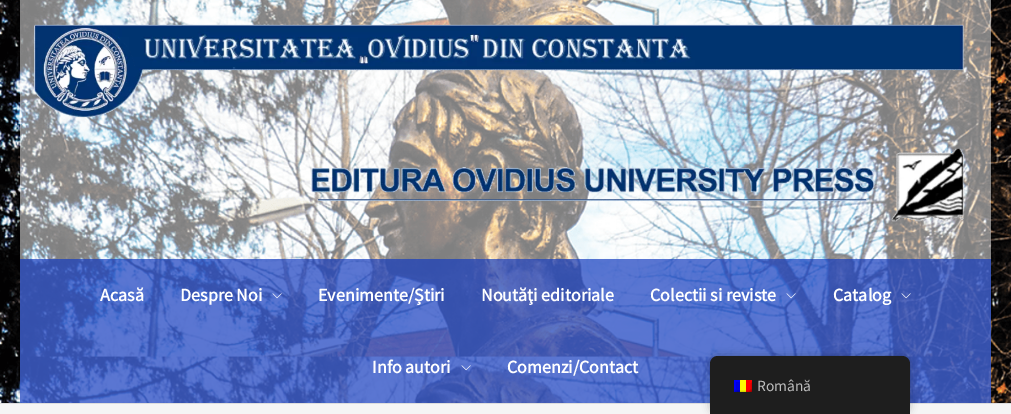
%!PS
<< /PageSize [1011 414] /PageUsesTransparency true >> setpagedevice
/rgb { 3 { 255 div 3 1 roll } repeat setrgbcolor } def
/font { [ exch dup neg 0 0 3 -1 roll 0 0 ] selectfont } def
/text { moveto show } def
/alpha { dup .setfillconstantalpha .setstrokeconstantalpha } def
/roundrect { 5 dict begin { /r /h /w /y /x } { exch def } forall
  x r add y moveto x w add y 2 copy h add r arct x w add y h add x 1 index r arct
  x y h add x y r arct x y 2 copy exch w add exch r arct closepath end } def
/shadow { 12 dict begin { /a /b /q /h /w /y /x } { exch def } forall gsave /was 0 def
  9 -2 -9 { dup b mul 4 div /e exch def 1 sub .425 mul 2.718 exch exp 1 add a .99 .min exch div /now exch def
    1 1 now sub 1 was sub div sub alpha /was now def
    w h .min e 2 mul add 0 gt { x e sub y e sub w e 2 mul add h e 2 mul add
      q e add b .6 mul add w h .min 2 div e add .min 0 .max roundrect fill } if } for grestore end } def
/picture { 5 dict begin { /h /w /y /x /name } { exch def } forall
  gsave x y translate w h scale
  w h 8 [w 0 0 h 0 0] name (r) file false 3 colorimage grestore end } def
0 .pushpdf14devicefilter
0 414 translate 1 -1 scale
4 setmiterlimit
245 245 245 rgb
0 0 1011 414 rectfill
(img_01.rgb) 0 0 1011 403 picture
221 221 221 rgb
0 403 1011 1 rectfill
(img_02.rgb) 34 24 930 198 picture
0.7 alpha
21 60 191 rgb
20 259 971 144 rectfill
1 alpha
(img_03.rgb) 272 293 10 6 picture
(img_04.rgb) 786 293 10 6 picture
(img_05.rgb) 901 293 10 6 picture
(img_06.rgb) 461 365 10 6 picture
0 0 0 rgb
710 356 200 58 8 4 0.25 shadow
30 30 30 rgb
718 356 moveto 184 0 rlineto 4.5 0 8 3.5 8 8 rcurveto 0 50 rlineto -200 0 rlineto 0 -50 rlineto 0 -4.5 3.5 -8 8 -8 rcurveto closepath fill
(img_07.rgb) 734 380 18 12 picture
/SourceSansPro-Bold 18 font
255 255 255 rgb
(Acasă) 100 301 text
(Despre Noi) 180 301 text
(Evenimente/Știri) 318 301 text
(Noutăţi editoriale) 481 301 text
(Colectii si reviste) 650 301 text
(Catalog) 833 301 text
(Info autori) 372 373 text
(Comenzi/Contact) 507 373 text
/SourceSansPro-Regular 15.5 font
189 189 189 rgb
(Română) 757 391 text
.poppdf14devicefilter showpage
